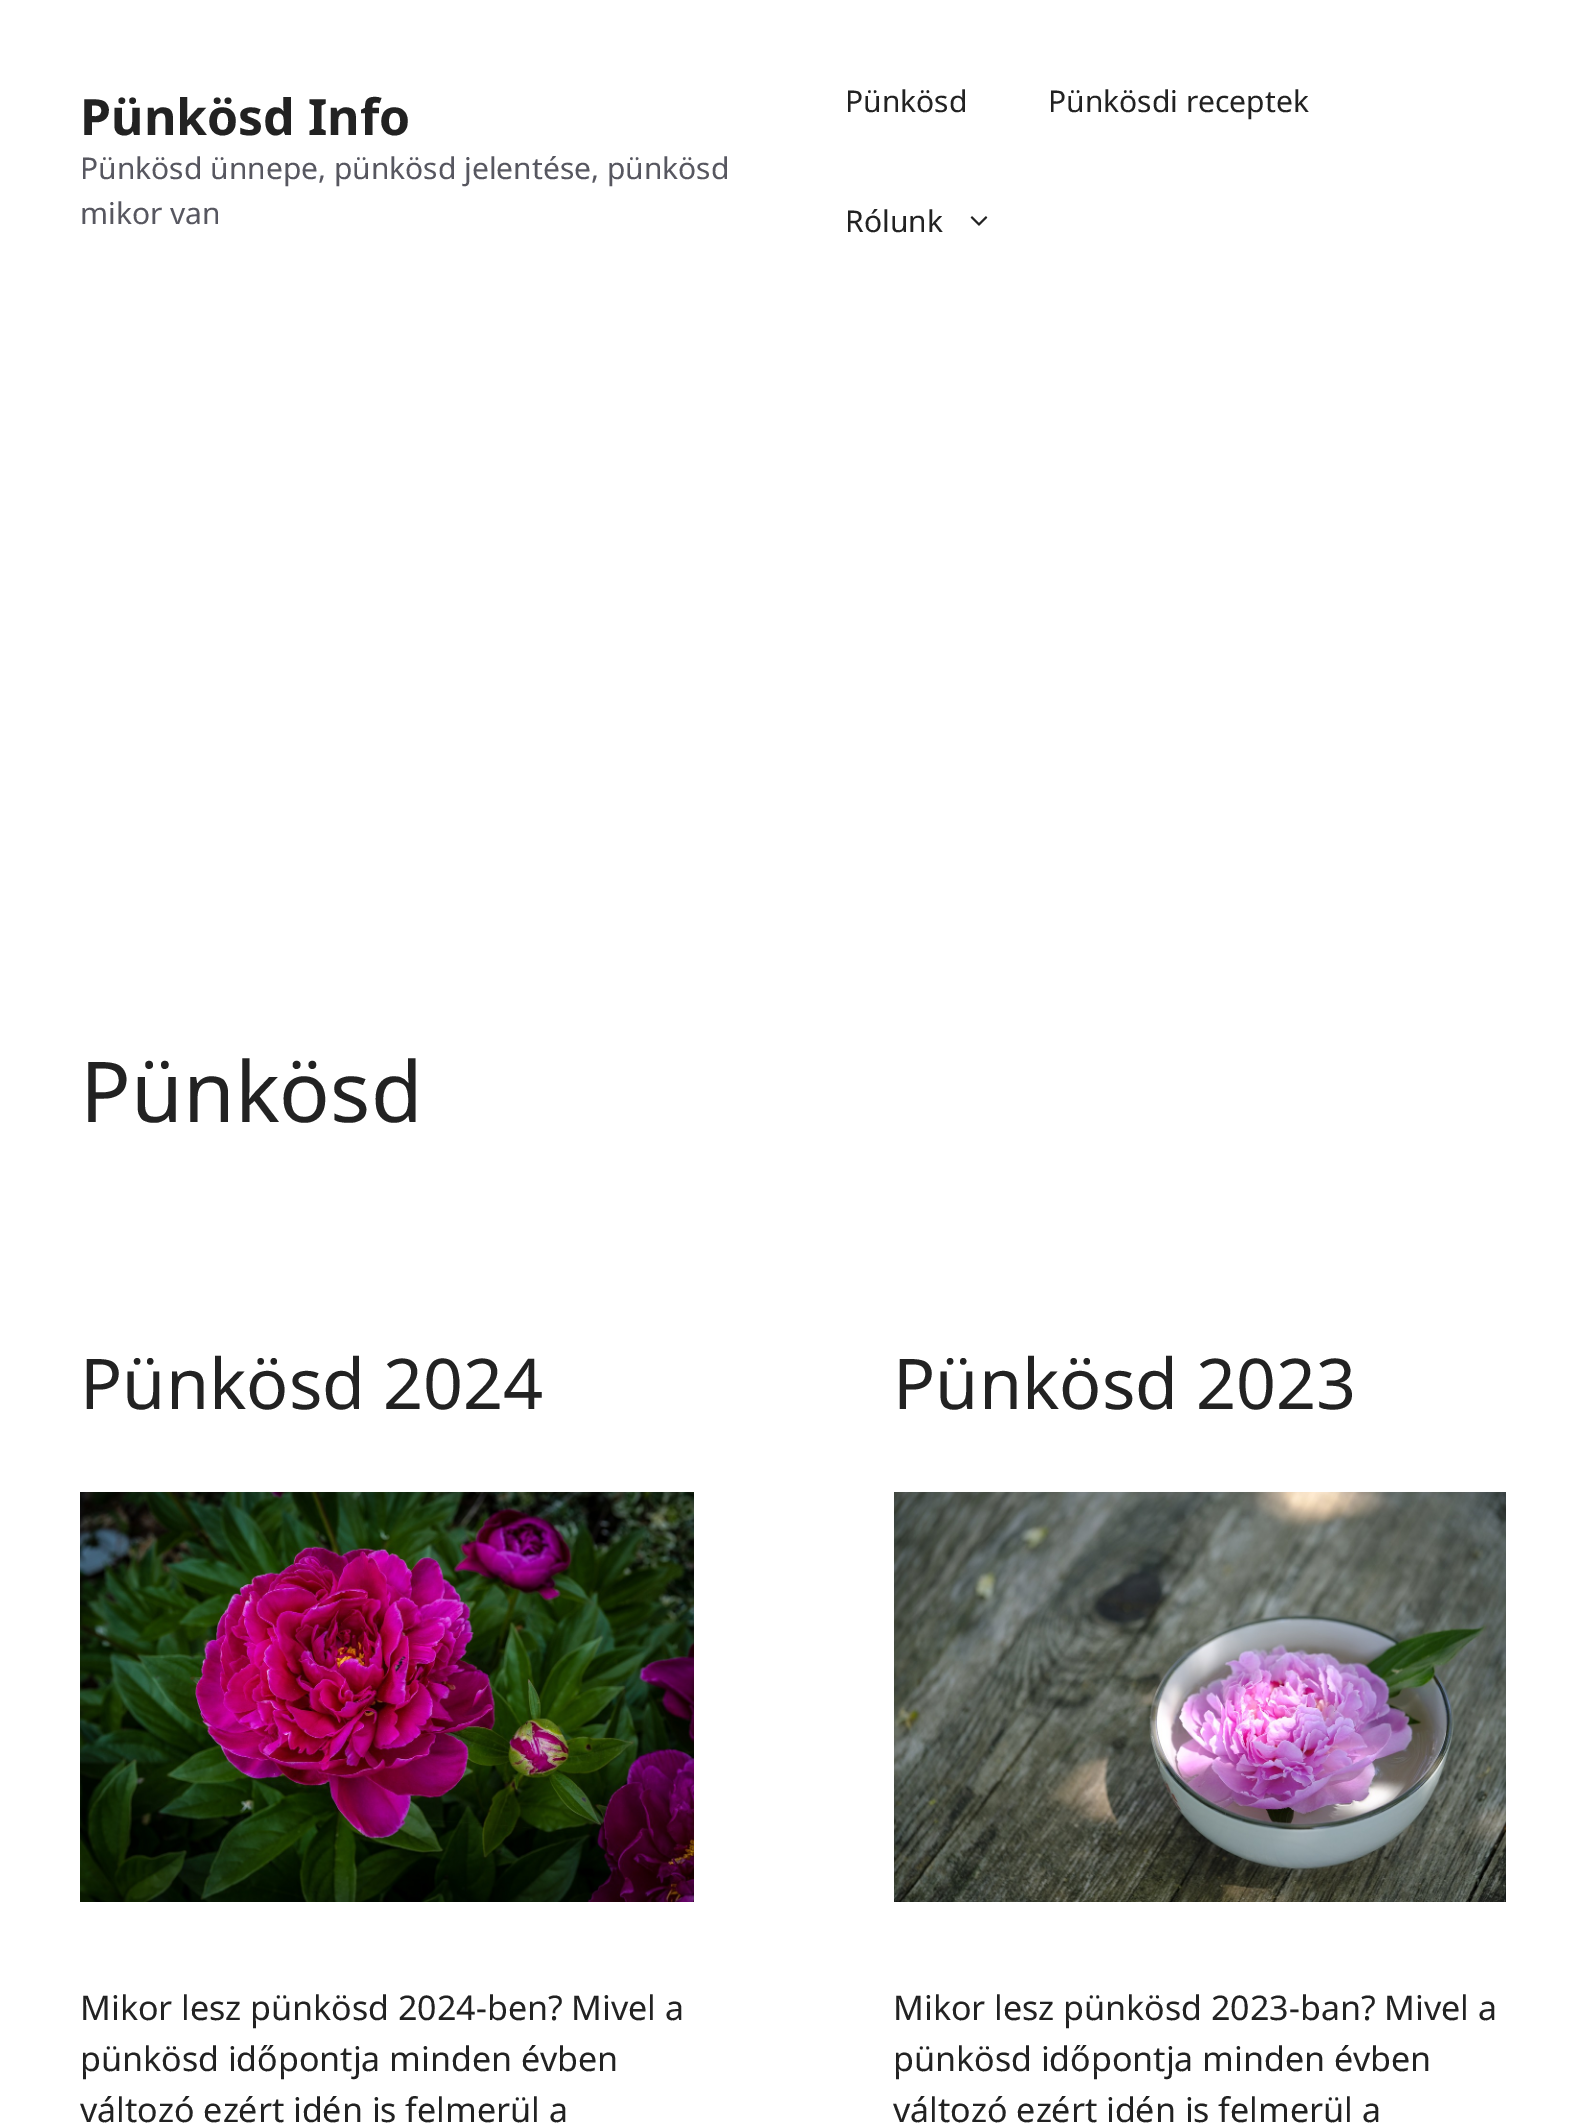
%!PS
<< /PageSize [1585 2126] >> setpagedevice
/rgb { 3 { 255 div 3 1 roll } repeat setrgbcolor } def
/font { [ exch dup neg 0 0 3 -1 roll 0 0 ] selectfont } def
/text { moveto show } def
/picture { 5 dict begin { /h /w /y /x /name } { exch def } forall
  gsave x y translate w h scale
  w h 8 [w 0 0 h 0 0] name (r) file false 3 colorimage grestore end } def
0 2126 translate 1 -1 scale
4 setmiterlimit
255 255 255 rgb
0 0 1585 2126 rectfill
(img_01.rgb) 970 216 18 10 picture
(img_02.rgb) 80 1492 614 410 picture
(img_03.rgb) 894 1492 612 410 picture
/NotoSans-Bold 50 font
34 34 34 rgb
(Pünkösd Info) 80 135 text
/NotoSans-Regular 30 font
87 87 96 rgb
(Pünkösd ünnepe, pünkösd jelentése, pünkösd) 80 179 text
(mikor van) 80 224 text
34 34 34 rgb
(Pünkösd) 845 112 text
(Pünkösdi receptek) 1048 112 text
(Rólunk) 845 232 text
/NotoSans-Regular 84 font
(Pünkösd) 80 1122 text
/NotoSans-Regular 70 font
(Pünkösd 2024) 80 1409 text
/NotoSans-Regular 34 font
(Mikor lesz pünkösd 2024-ben? Mivel a) 80 2020 text
(pünkösd időpontja minden évben) 80 2071 text
(változó ezért idén is felmerül a) 80 2122 text
/NotoSans-Regular 70 font
(Pünkösd 2023) 893 1409 text
/NotoSans-Regular 34 font
(Mikor lesz pünkösd 2023-ban? Mivel a) 893 2020 text
(pünkösd időpontja minden évben) 893 2071 text
(változó ezért idén is felmerül a) 893 2122 text
showpage
